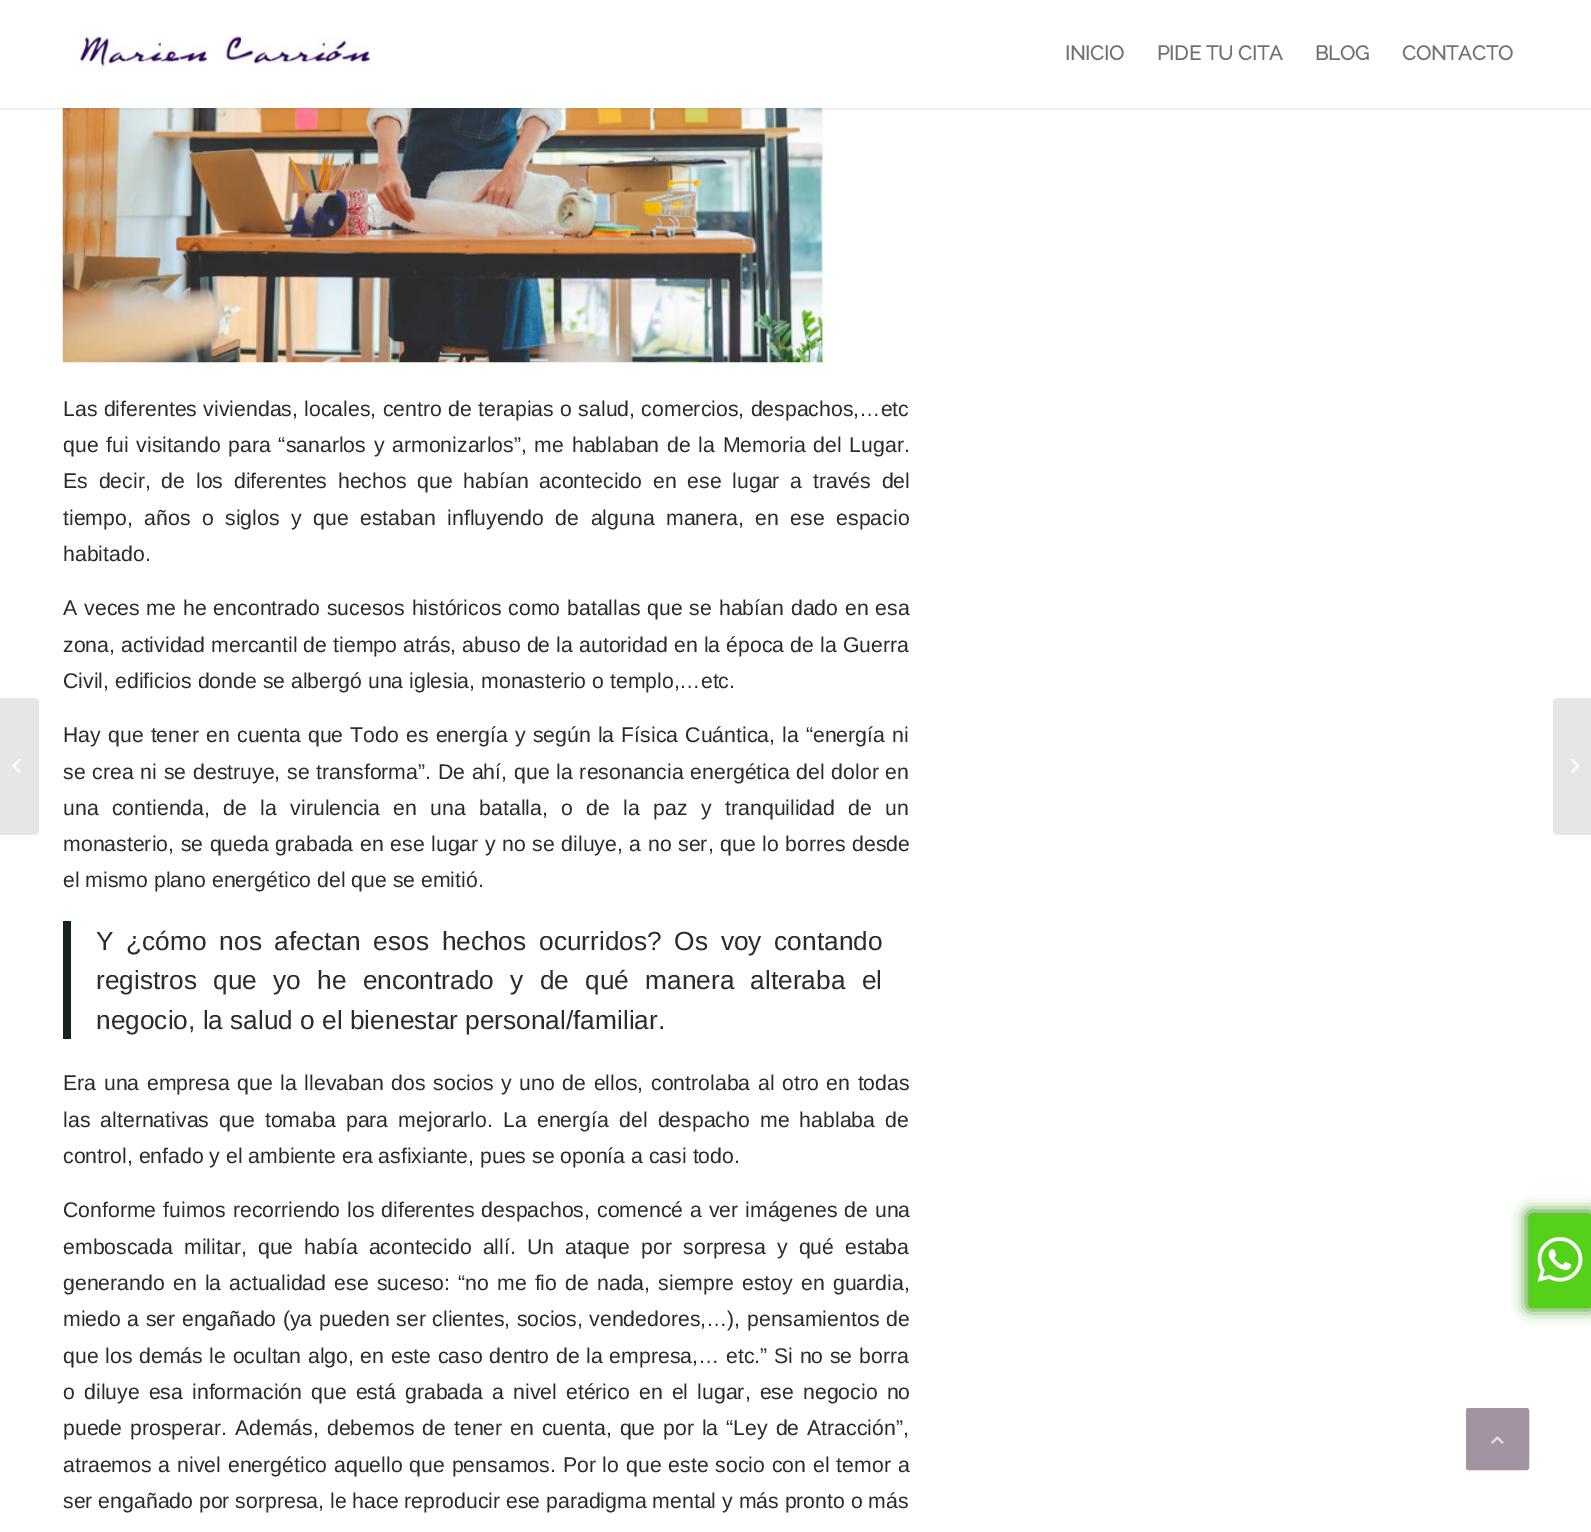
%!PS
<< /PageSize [1591 1532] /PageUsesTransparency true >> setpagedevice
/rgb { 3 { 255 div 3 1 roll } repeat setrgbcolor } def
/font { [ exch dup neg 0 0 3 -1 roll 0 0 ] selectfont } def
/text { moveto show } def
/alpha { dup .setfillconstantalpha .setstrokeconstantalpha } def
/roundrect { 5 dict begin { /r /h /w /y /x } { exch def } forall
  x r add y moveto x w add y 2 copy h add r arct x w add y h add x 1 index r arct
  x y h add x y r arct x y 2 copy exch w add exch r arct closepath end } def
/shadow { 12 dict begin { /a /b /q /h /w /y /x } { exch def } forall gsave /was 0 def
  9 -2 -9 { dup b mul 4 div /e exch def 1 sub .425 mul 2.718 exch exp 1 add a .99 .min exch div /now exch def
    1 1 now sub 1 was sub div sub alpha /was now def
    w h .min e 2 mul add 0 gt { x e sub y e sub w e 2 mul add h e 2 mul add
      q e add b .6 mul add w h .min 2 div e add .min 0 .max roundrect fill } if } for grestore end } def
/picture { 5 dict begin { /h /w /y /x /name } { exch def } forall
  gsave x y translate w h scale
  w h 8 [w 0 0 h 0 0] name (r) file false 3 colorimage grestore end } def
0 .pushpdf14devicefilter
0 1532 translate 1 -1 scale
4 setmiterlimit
255 255 255 rgb
0 0 1591 1532 rectfill
(img_02.rgb) 62 108 761 255 picture
0 0 0 rgb
-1 -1 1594 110 0 1 0.1 shadow
255 255 255 rgb
0 0 1591 108 rectfill
(img_01.rgb) 80 36 290 36 picture
24 34 36 rgb
63 921 8 118 rectfill
230 230 230 rgb
0 698 moveto 34 0 rlineto 3 0 5 2 5 5 rcurveto 0 127 rlineto 0 3 -2 5 -5 5 rcurveto -34 0 rlineto closepath fill
(img_03.rgb) 12 759 9 14 picture
1558 698 moveto 33 0 rlineto 0 137 rlineto -33 0 rlineto -3 0 -5 -2 -5 -5 rcurveto 0 -127 rlineto 0 -3 2 -5 5 -5 rcurveto closepath fill
(img_04.rgb) 1571 759 8 14 picture
57 150 18 rgb
1526 1211 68 99 4 7 1 shadow
86 209 25 rgb
1529 1214 62 94 1 roundrect fill
(img_05.rgb) 1537 1237 46 45 picture
161 147 160 rgb
1466.5 1408.5 62 61 2 roundrect gsave fill grestore
stroke
(img_06.rgb) 1491 1436 13 8 picture
/Raleway-Bold 20 font
112 112 112 rgb
(INICIO) 1065 60 text
(PIDE TU CITA) 1157 60 text
(BLOG) 1315 60 text
(CONTACTO) 1402 60 text
/LiberationSans-Regular 21.25 font
45 41 46 rgb
63 416 moveto 0.5 0 32 (Las diferentes viviendas, locales, centro de terapias o salud, comercios, despachos,…etc) widthshow
63 452 moveto 1.9 0 32 (que fui visitando para “sanarlos y armonizarlos”, me hablaban de la Memoria del Lugar.) widthshow
63 488 moveto 4.9 0 32 (Es decir, de los diferentes hechos que habían acontecido en ese lugar a través del) widthshow
63 525 moveto 5.6 0 32 (tiempo, años o siglos y que estaban influyendo de alguna manera, en ese espacio) widthshow
(habitado.) 63 561 text
63 615 moveto 1 0 32 (A veces me he encontrado sucesos históricos como batallas que se habían dado en esa) widthshow
63 652 moveto 0.25 0 32 (zona, actividad mercantil de tiempo atrás, abuso de la autoridad en la época de la Guerra) widthshow
(Civil, edificios donde se albergó una iglesia, monasterio o templo,…etc.) 63 688 text
63 742 moveto 1.25 0 32 (Hay que tener en cuenta que Todo es energía y según la Física Cuántica, la “energía ni) widthshow
63 779 moveto 0.9 0 32 (se crea ni se destruye, se transforma”. De ahí, que la resonancia energética del dolor en) widthshow
63 815 moveto 7.5 0 32 (una contienda, de la virulencia en una batalla, o de la paz y tranquilidad de un) widthshow
63 851 moveto 0.7 0 32 (monasterio, se queda grabada en ese lugar y no se diluye, a no ser, que lo borres desde) widthshow
(el mismo plano energético del que se emitió.) 63 887 text
/LiberationSans-Regular 26.25 font
96 950 moveto 5.5 0 32 (Y ¿cómo nos afectan esos hechos ocurridos? Os voy contando) widthshow
96 989 moveto 9 0 32 (registros que yo he encontrado y de qué manera alteraba el) widthshow
(negocio, la salud o el bienestar personal/familiar.) 96 1029 text
/LiberationSans-Regular 21.25 font
63 1090 moveto 1.75 0 32 (Era una empresa que la llevaban dos socios y uno de ellos, controlaba al otro en todas) widthshow
63 1127 moveto 4.25 0 32 (las alternativas que tomaba para mejorarlo. La energía del despacho me hablaba de) widthshow
(control, enfado y el ambiente era asfixiante, pues se oponía a casi todo.) 63 1163 text
63 1217 moveto 1 0 32 (Conforme fuimos recorriendo los diferentes despachos, comencé a ver imágenes de una) widthshow
63 1254 moveto 5.25 0 32 (emboscada militar, que había acontecido allí. Un ataque por sorpresa y qué estaba) widthshow
63 1290 moveto 2.25 0 32 (generando en la actualidad ese suceso: “no me fio de nada, siempre estoy en guardia,) widthshow
63 1326 moveto 0.6 0 32 (miedo a ser engañado \(ya pueden ser clientes, socios, vendedores,…\), pensamientos de) widthshow
63 1363 moveto 0.75 0 32 (que los demás le ocultan algo, en este caso dentro de la empresa,… etc.”) widthshow
774 1363 moveto 0.75 0 32 (Si no se borra) widthshow
63 1399 moveto 3.25 0 32 (o diluye esa información que está grabada a nivel etérico en el lugar, ese negocio no) widthshow
63 1435 moveto 2.1 0 32 (puede prosperar. Además, debemos de tener en cuenta, que por la “Ley de Atracción”,) widthshow
63 1472 moveto 1 0 32 (atraemos a nivel energético aquello que pensamos. Por lo que este socio con el temor a) widthshow
(ser engañado por sorpresa, le hace reproducir ese paradigma mental y más pronto o más) 63 1508 text
.poppdf14devicefilter showpage
